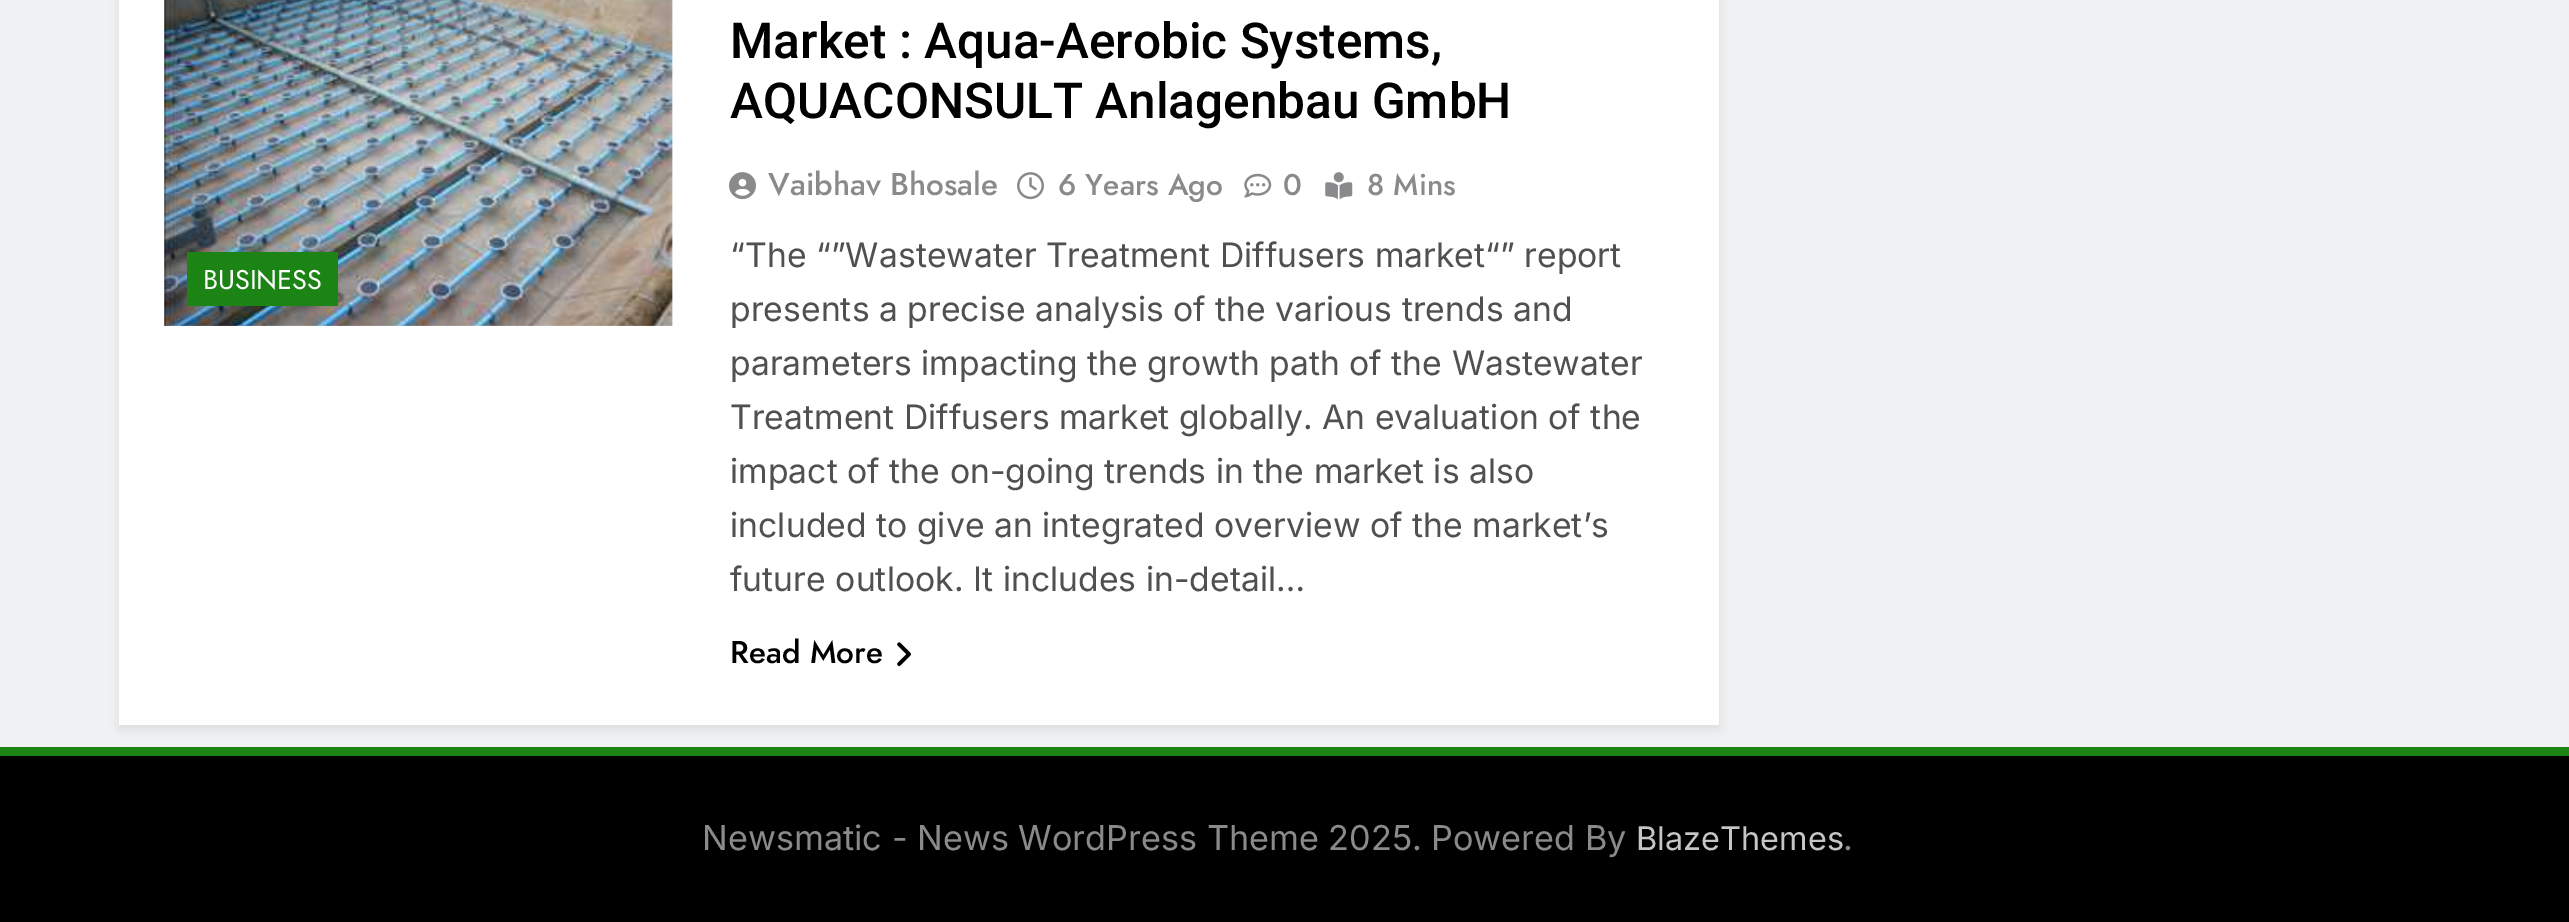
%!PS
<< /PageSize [2569 922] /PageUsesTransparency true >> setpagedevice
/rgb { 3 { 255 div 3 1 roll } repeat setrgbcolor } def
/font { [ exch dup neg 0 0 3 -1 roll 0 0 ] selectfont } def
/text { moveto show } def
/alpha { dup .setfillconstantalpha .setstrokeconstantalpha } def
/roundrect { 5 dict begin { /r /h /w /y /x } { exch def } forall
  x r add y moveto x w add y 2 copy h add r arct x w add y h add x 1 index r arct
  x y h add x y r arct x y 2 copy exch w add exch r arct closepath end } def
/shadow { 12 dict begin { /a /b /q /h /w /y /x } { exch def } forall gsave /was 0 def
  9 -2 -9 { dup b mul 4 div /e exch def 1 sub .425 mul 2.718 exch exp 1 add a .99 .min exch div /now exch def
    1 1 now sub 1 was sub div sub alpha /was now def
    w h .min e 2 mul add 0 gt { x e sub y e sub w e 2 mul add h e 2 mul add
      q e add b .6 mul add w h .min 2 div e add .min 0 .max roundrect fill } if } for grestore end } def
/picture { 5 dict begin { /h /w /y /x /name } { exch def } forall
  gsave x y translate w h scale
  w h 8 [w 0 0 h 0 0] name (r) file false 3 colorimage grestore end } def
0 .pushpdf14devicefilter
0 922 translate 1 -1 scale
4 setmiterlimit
240 241 242 rgb
0 0 2569 922 rectfill
0 0 0 rgb
119 -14 1600 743 0 4.5 0.08 shadow
255 255 255 rgb
119 0 1600 725 rectfill
(img_01.rgb) 164 0 509 326 picture
27 132 21 rgb
187 252 151 54 rectfill
(img_02.rgb) 729 172 27 28 picture
(img_03.rgb) 1017 172 27 28 picture
(img_04.rgb) 1244 173 28 25 picture
(img_05.rgb) 1325 172 28 27 picture
(img_06.rgb) 897 642 14 24 picture
0 747 2569 9 rectfill
0 0 0 rgb
0 756 2569 166 rectfill
/Jost-Regular 27 font
255 255 255 rgb
(BUSINESS) 203 289 text
/Roboto-Medium 49.5 font
0 0 0 rgb
(Market : Aqua-Aerobic Systems,) 730 58 text
(AQUACONSULT Anlagenbau GmbH) 730 118 text
/Jost-Medium 31.5 font
138 138 140 rgb
(Vaibhav Bhosale) 768 195 text
/Jost-Medium 30 font
(6 Years Ago) 1058 195 text
(0) 1283 195 text
(8 Mins) 1367 195 text
/Inter-Regular 33.75 font
80 80 80 rgb
(“The “”Wastewater Treatment Diffusers market“” report) 730 267 text
(presents a precise analysis of the various trends and) 730 321 text
(parameters impacting the growth path of the Wastewater) 730 375 text
(Treatment Diffusers market globally. An evaluation of the) 730 429 text
(impact of the on-going trends in the market is also) 730 483 text
(included to give an integrated overview of the market’s) 730 537 text
(future outlook. It includes in-detail…) 730 591 text
/Jost-Medium 31.5 font
0 0 0 rgb
(Read More) 730 663 text
/Inter-Regular 34.2 font
138 138 140 rgb
(Newsmatic - News WordPress Theme 2025.) 702 850 text
(Powered By) 1431 850 text
/Inter-Regular 32.5 font
197 197 197 rgb
(BlazeThemes) 1636 850 text
/Inter-Regular 34.2 font
138 138 140 rgb
(.) 1843 850 text
.poppdf14devicefilter showpage
